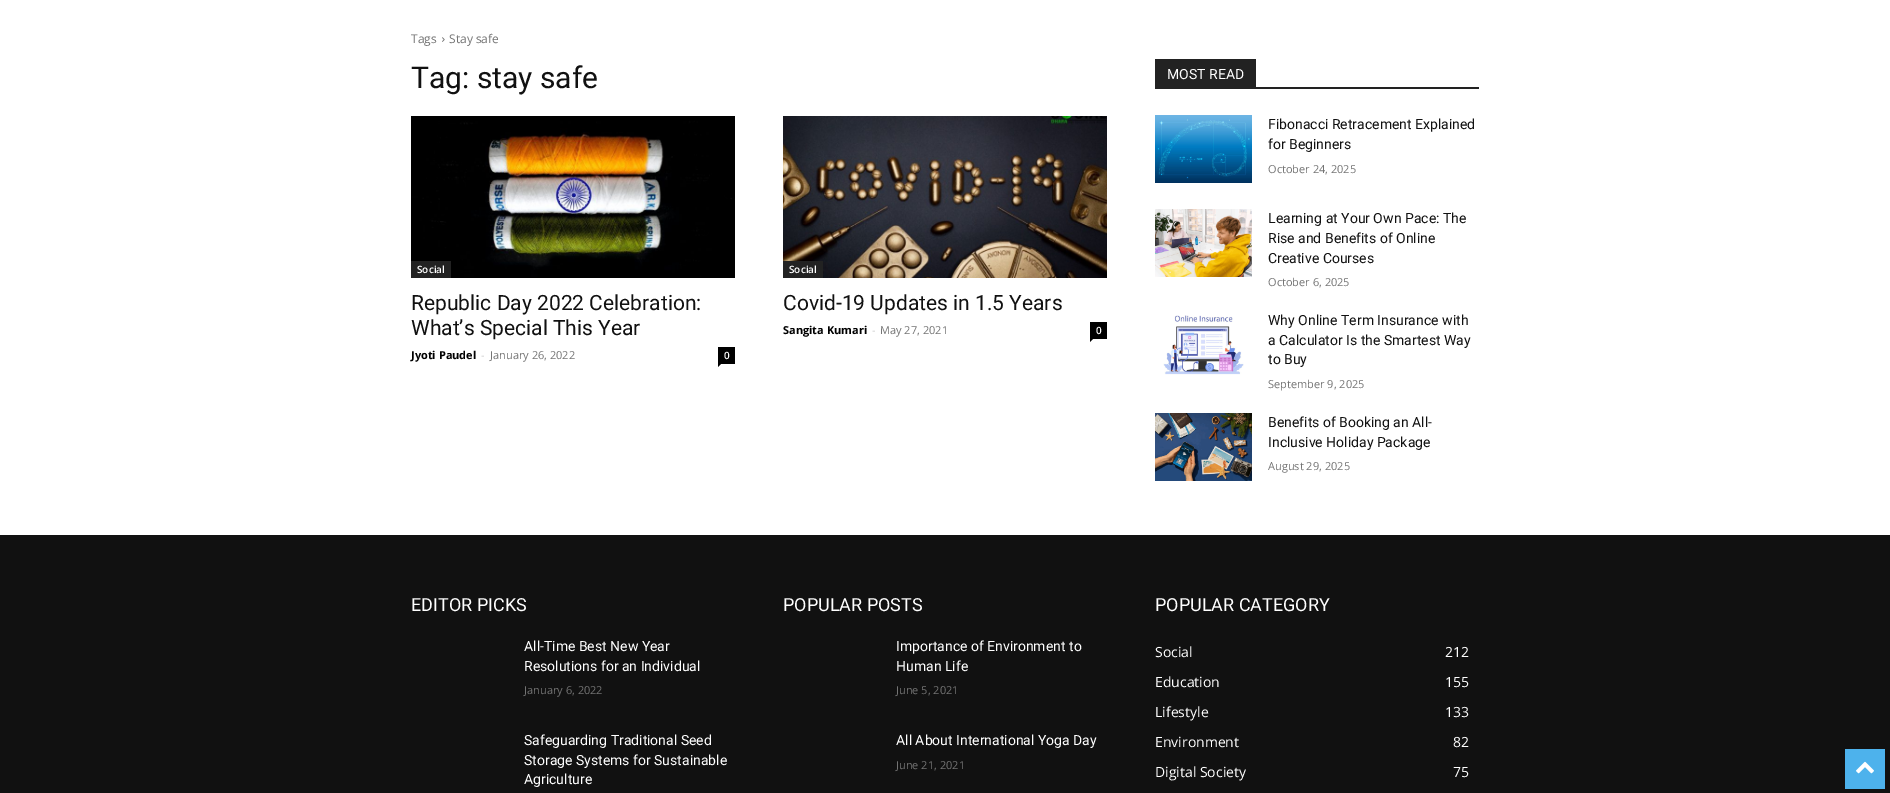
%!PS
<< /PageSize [1890 793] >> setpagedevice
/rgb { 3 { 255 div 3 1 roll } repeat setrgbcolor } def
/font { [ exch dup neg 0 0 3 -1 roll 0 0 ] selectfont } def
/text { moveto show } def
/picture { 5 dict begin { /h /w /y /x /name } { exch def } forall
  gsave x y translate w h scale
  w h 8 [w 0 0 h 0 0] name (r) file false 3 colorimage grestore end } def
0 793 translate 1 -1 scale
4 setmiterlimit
255 255 255 rgb
0 0 1890 793 rectfill
(img_01.rgb) 442 37 3 5 picture
(img_02.rgb) 411 116 324 162 picture
34 34 34 rgb
411 261 40 17 rectfill
0 0 0 rgb
718 347 17 17 rectfill
718 364 moveto 3 0 rlineto -3 3 rlineto closepath fill
(img_03.rgb) 783 116 324 162 picture
34 34 34 rgb
783 261 40 17 rectfill
0 0 0 rgb
1090 322 17 17 rectfill
1090 339 moveto 3 0 rlineto -3 3 rlineto closepath fill
34 34 34 rgb
1155 87 324 2 rectfill
1155 59 101 28 rectfill
(img_04.rgb) 1155 115 97 68 picture
(img_05.rgb) 1155 209 97 68 picture
(img_06.rgb) 1163 315 81 60 picture
(img_07.rgb) 1155 413 97 68 picture
17 17 17 rgb
0 535 1890 258 rectfill
77 178 236 rgb
1845 749 40 40 rectfill
(img_08.rgb) 1856 761 18 13 picture
/OpenSans-Regular 12 font
116 116 116 rgb
(Tags) 411 43 text
(Stay safe) 449 43 text
/Roboto-Regular 30 font
17 17 17 rgb
(Tag: stay safe) 411 88 text
/OpenSans-SemiBold 10 font
255 255 255 rgb
(Social) 417 273 text
/Roboto-Regular 21 font
17 17 17 rgb
(Republic Day 2022 Celebration:) 411 310 text
(What’s Special This Year) 411 335 text
/OpenSans-Bold 11 font
0 0 0 rgb
(Jyoti Paudel) 411 359 text
/OpenSans-Regular 11 font
204 204 204 rgb
(-) 481 359 text
116 116 116 rgb
(January 26, 2022) 490 359 text
/OpenSans-SemiBold 10 font
255 255 255 rgb
(0) 724 359 text
(Social) 789 273 text
/Roboto-Regular 21 font
17 17 17 rgb
(Covid-19 Updates in 1.5 Years) 783 310 text
/OpenSans-Bold 11 font
0 0 0 rgb
(Sangita Kumari) 783 334 text
/OpenSans-Regular 11 font
204 204 204 rgb
(-) 872 334 text
116 116 116 rgb
(May 27, 2021) 880 334 text
/OpenSans-SemiBold 10 font
255 255 255 rgb
(0) 1096 334 text
/Roboto-Regular 14 font
(MOST READ) 1167 79 text
17 17 17 rgb
(Fibonacci Retracement Explained) 1268 129 text
(for Beginners) 1268 149 text
/OpenSans-Regular 11 font
116 116 116 rgb
(October 24, 2025) 1268 173 text
/Roboto-Regular 14 font
17 17 17 rgb
(Learning at Your Own Pace: The) 1268 223 text
(Rise and Benefits of Online) 1268 243 text
(Creative Courses) 1268 263 text
/OpenSans-Regular 11 font
116 116 116 rgb
(October 6, 2025) 1268 286 text
/Roboto-Regular 14 font
17 17 17 rgb
(Why Online Term Insurance with) 1268 325 text
(a Calculator Is the Smartest Way) 1268 345 text
(to Buy) 1268 364 text
/OpenSans-Regular 11 font
116 116 116 rgb
(September 9, 2025) 1268 388 text
/Roboto-Regular 14 font
17 17 17 rgb
(Benefits of Booking an All-) 1268 427 text
(Inclusive Holiday Package) 1268 447 text
/OpenSans-Regular 11 font
116 116 116 rgb
(August 29, 2025) 1268 470 text
/Roboto-Regular 18 font
255 255 255 rgb
(EDITOR PICKS) 411 611 text
/Roboto-Regular 14 font
(All-Time Best New Year) 524 651 text
(Resolutions for an Individual) 524 671 text
/OpenSans-Regular 11 font
116 116 116 rgb
(January 6, 2022) 524 694 text
/Roboto-Regular 14 font
255 255 255 rgb
(Safeguarding Traditional Seed) 524 745 text
(Storage Systems for Sustainable) 524 765 text
(Agriculture) 524 784 text
/Roboto-Regular 18 font
(POPULAR POSTS) 783 611 text
/Roboto-Regular 14 font
(Importance of Environment to) 896 651 text
(Human Life) 896 671 text
/OpenSans-Regular 11 font
116 116 116 rgb
(June 5, 2021) 896 694 text
/Roboto-Regular 14 font
255 255 255 rgb
(All About International Yoga Day) 896 745 text
/OpenSans-Regular 11 font
116 116 116 rgb
(June 21, 2021) 896 769 text
/Roboto-Regular 18 font
255 255 255 rgb
(POPULAR CATEGORY) 1155 611 text
/OpenSans-Regular 14 font
(Social) 1155 657 text
(212) 1445 657 text
(Education) 1155 687 text
(155) 1445 687 text
(Lifestyle) 1155 717 text
(133) 1445 717 text
(Environment) 1155 747 text
(82) 1453 747 text
(Digital Society) 1155 777 text
(75) 1453 777 text
showpage
